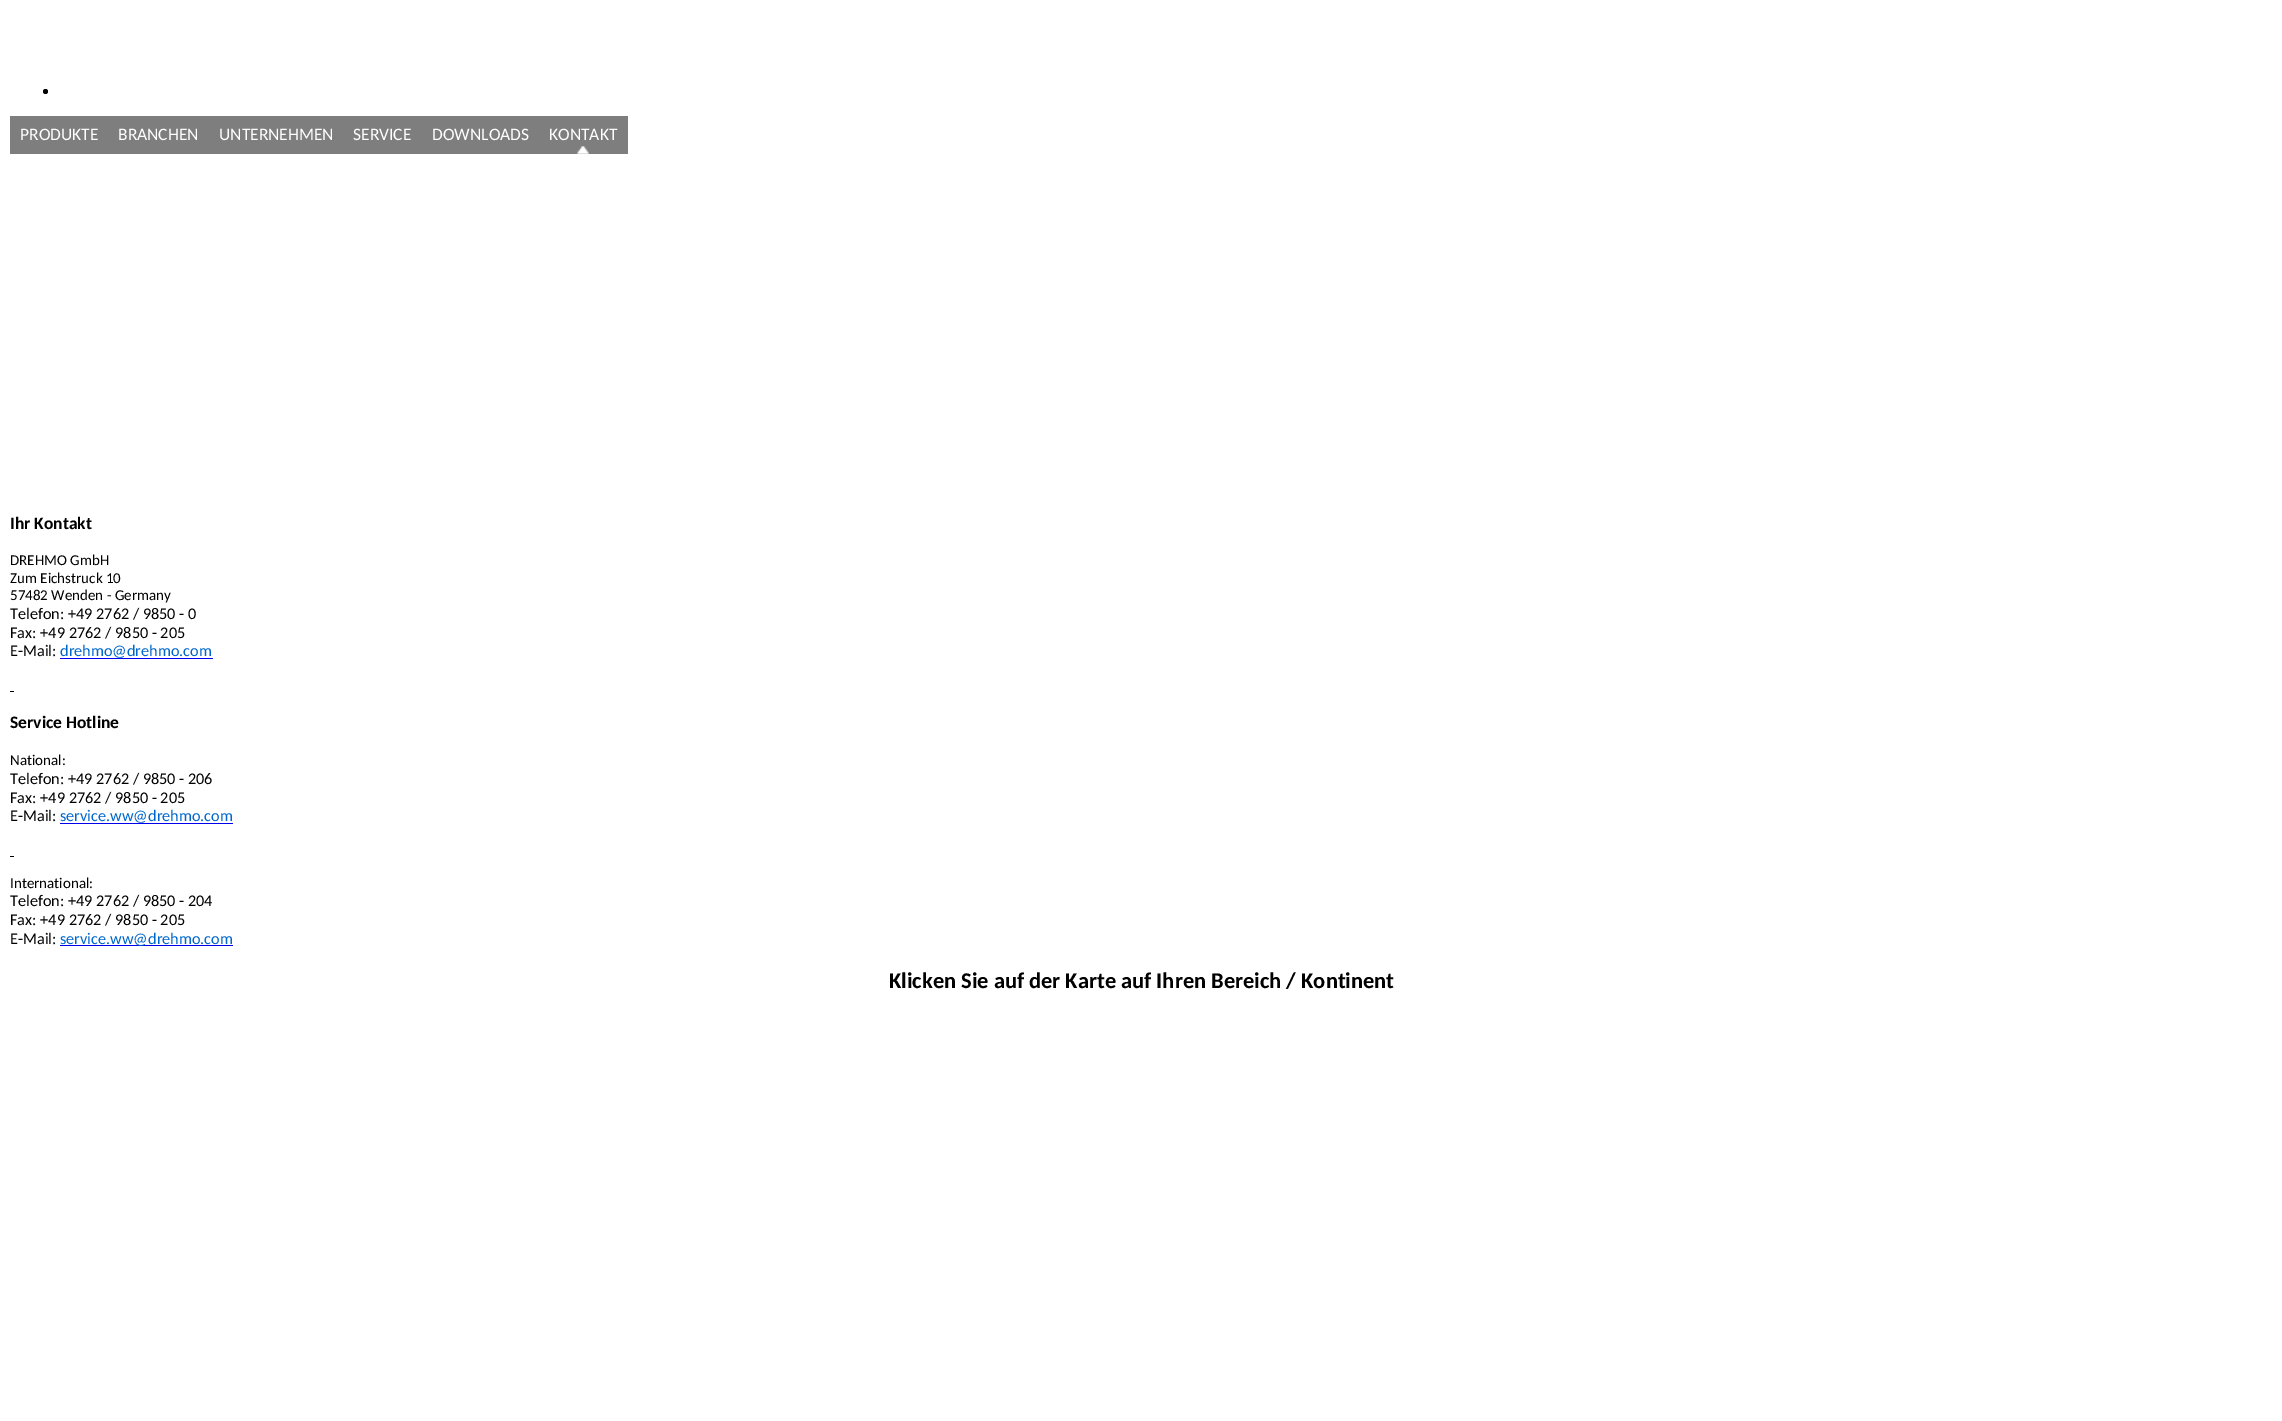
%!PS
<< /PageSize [2282 1421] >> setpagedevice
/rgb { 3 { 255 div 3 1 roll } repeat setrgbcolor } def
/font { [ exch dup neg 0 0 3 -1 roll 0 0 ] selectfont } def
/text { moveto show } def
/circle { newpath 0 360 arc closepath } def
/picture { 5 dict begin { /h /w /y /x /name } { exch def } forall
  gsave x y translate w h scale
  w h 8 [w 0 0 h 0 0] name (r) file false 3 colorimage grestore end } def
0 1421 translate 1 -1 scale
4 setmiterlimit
255 255 255 rgb
0 0 2282 1421 rectfill
0 0 0 rgb
45.5 91.5 2.5 circle fill
126 126 126 rgb
10 116 618 38 rectfill
(img_01.rgb) 577 146 12 8 picture
0 0 238 rgb
60 658 153 1 rectfill
0 0 0 rgb
10 691 4 1 rectfill
0 0 238 rgb
60 823 173 1 rectfill
0 0 0 rgb
10 856 4 1 rectfill
0 0 238 rgb
60 945 173 1 rectfill
/Carlito-Regular 17.5 font
255 255 255 rgb
(PRODUKTE) 20 140 text
(BRANCHEN) 118 140 text
(UNTERNEHMEN) 219 140 text
(SERVICE) 353 140 text
(DOWNLOADS) 432 140 text
(KONTAKT) 549 140 text
/Carlito-Bold 17.5 font
0 0 0 rgb
(Ihr Kontakt) 10 529 text
/Carlito-Regular 15 font
(DREHMO GmbH) 10 565 text
(Zum Eichstruck 10) 10 583 text
(57482 Wenden - Germany) 10 600 text
/Carlito-Regular 16.25 font
(Telefon: +49 2762 / 9850 - 0) 10 619 text
(Fax: +49 2762 / 9850 - 205) 10 638 text
(E-Mail:) 10 656 text
0 102 204 rgb
(drehmo@drehmo.com) 60 656 text
/Carlito-Bold 17.5 font
0 0 0 rgb
(Service Hotline) 10 728 text
/Carlito-Regular 15 font
(National:) 10 765 text
/Carlito-Regular 16.25 font
(Telefon: +49 2762 / 9850 - 206) 10 784 text
(Fax: +49 2762 / 9850 - 205) 10 803 text
(E-Mail:) 10 821 text
0 102 204 rgb
(service.ww@drehmo.com) 60 821 text
/Carlito-Regular 15 font
0 0 0 rgb
(International:) 10 888 text
/Carlito-Regular 16.25 font
(Telefon: +49 2762 / 9850 - 204) 10 906 text
(Fax: +49 2762 / 9850 - 205) 10 925 text
(E-Mail:) 10 944 text
0 102 204 rgb
(service.ww@drehmo.com) 60 944 text
/Carlito-Bold 22.5 font
0 0 0 rgb
(Klicken Sie auf der Karte auf Ihren Bereich / Kontinent) 889 988 text
showpage
